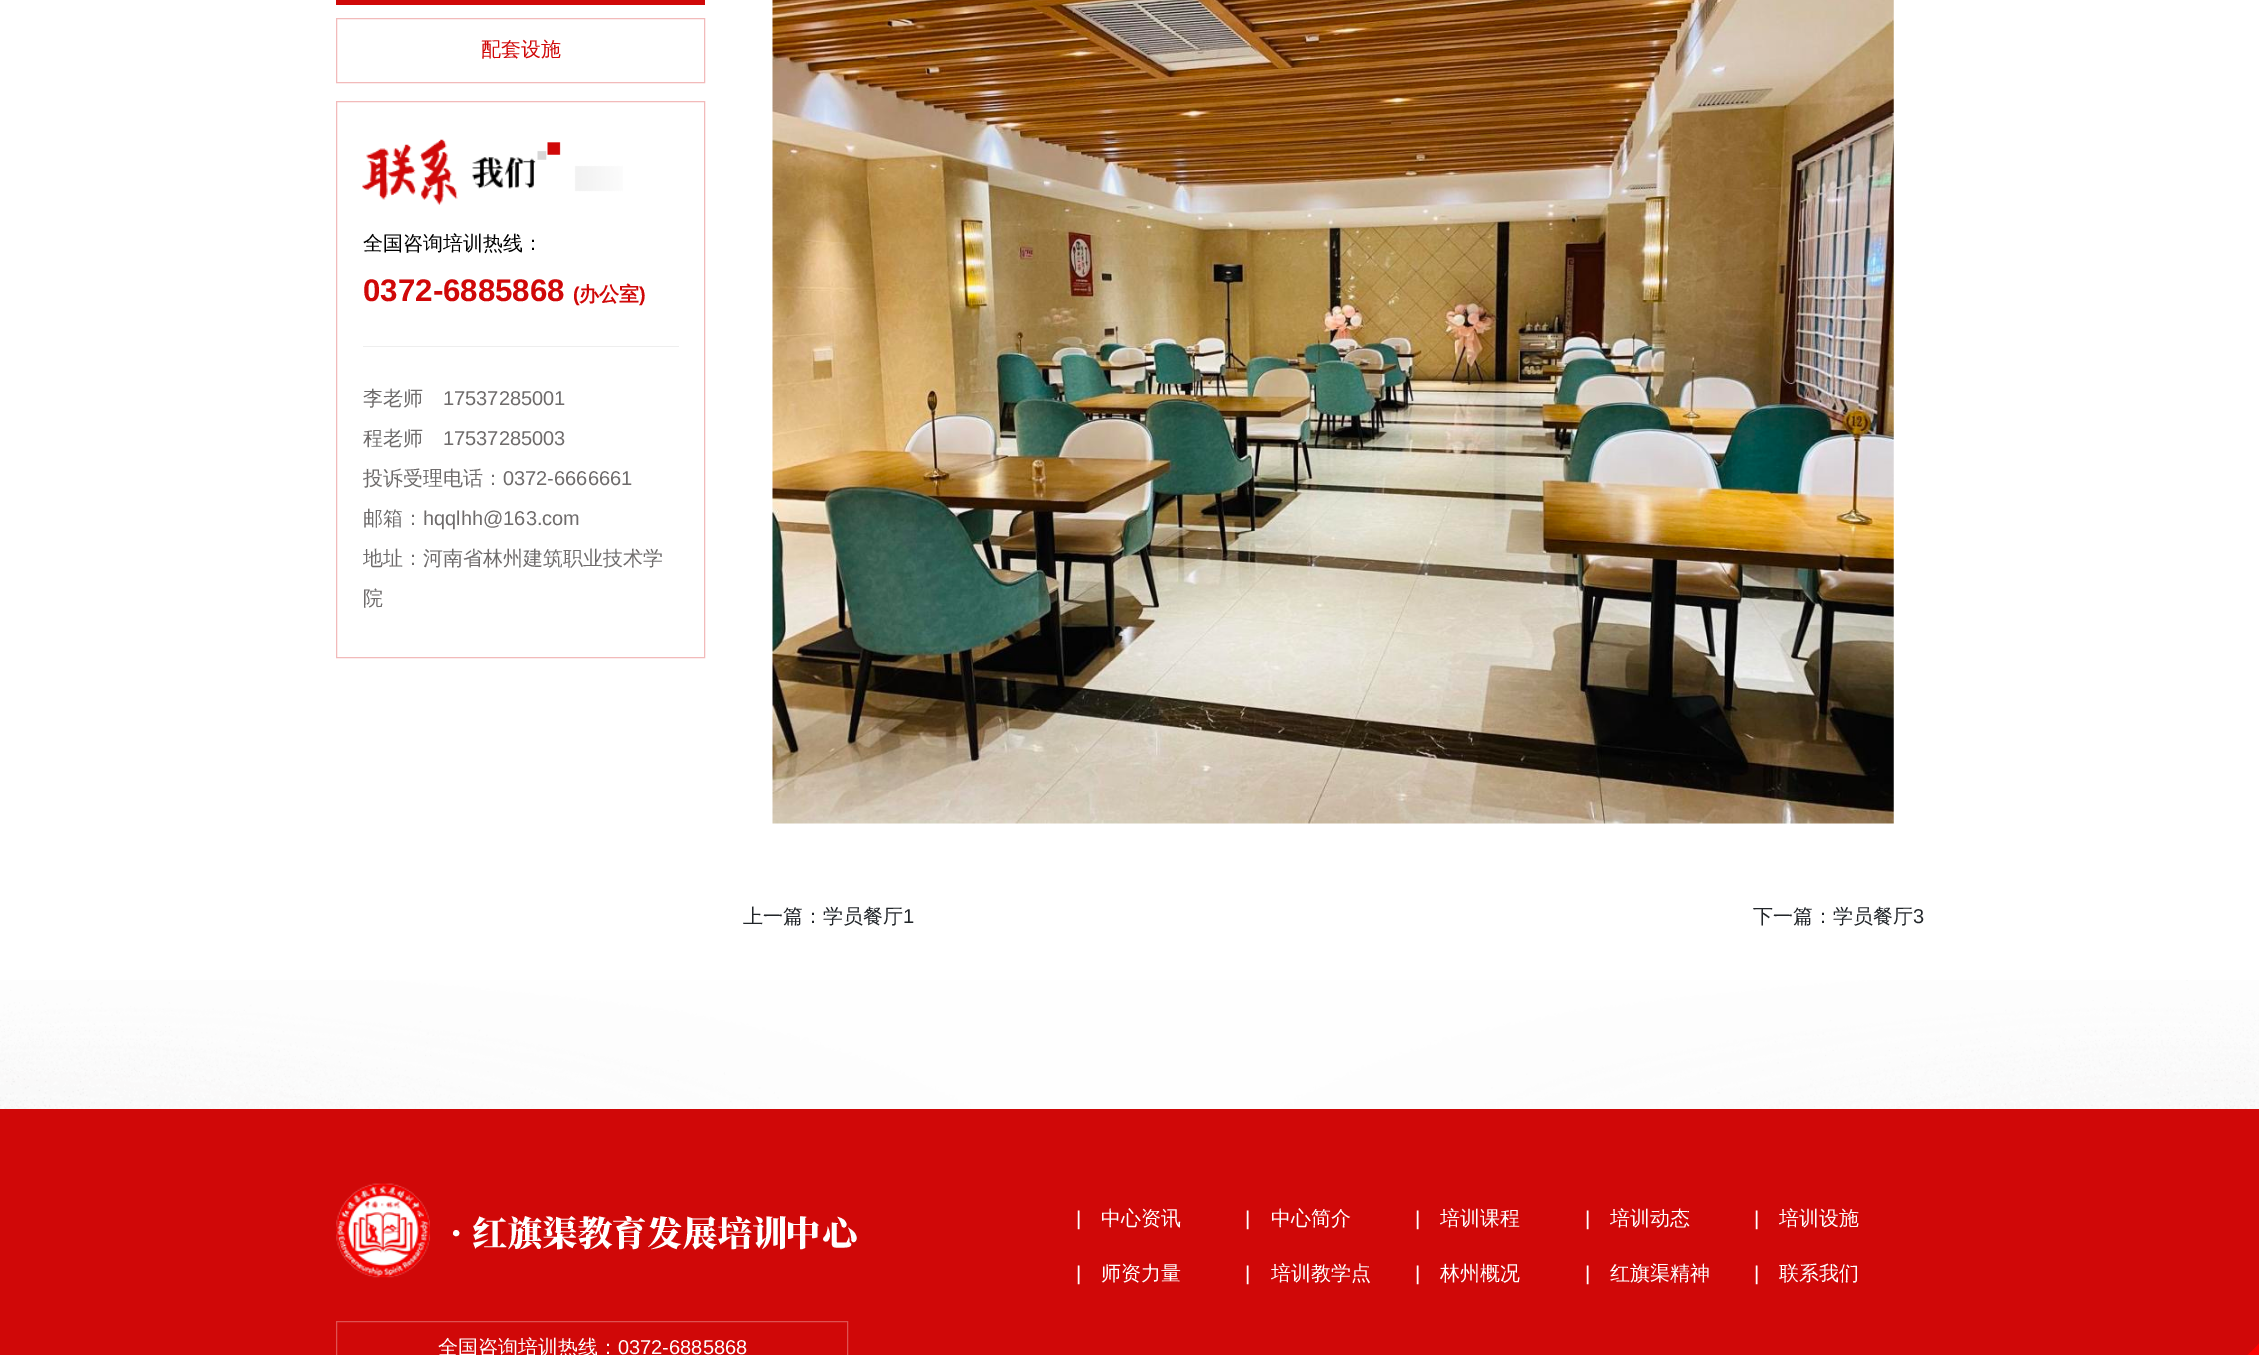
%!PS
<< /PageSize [2259 1355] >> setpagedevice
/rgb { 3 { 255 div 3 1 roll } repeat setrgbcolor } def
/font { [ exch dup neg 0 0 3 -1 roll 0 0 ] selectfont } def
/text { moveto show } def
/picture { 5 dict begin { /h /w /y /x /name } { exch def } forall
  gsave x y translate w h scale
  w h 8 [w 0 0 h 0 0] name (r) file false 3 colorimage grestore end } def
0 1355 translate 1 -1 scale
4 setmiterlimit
255 255 255 rgb
0 0 2259 1355 rectfill
(img_01.rgb) 0 980 2259 129 picture
208 8 8 rgb
336 0 369 5 rectfill
242 186 186 rgb
336.5 18.5 368 64 rectstroke
336.5 101.5 368 556 rectstroke
(img_02.rgb) 362 139 261 66 picture
238 238 238 rgb
363 346 316 1 rectfill
(img_03.rgb) 772 0 1122 824 picture
208 8 8 rgb
0 1109 2259 246 rectfill
(img_04.rgb) 336 1183 94 95 picture
222 82 82 rgb
336.5 1321.5 511 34 rectstroke
255 0 0 rgb
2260 1342.5 moveto 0 12.5 rlineto -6 -6 rlineto closepath fill
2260 1355 moveto -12.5 0 rlineto 6.5 -6 rlineto closepath fill
/WenQuanYiZenHei-Medium 20 font
208 8 8 rgb
(配套设施) 481 56 text
0 0 0 rgb
(全国咨询培训热线：) 363 250 text
/LiberationSans-Bold 31.25 font
208 8 8 rgb
(0372-6885868) 363 301 text
/LiberationSans-Bold 20 font
(\() 573 301 text
/WenQuanYiZenHei-Bold 20 font
(办公室) 579 301 text
/LiberationSans-Bold 20 font
(\)) 639 301 text
/WenQuanYiZenHei-Medium 20 font
110 107 107 rgb
(李老师) 363 405 text
/LiberationSans-Regular 20 font
(17537285001) 443 405 text
/WenQuanYiZenHei-Medium 20 font
(程老师) 363 445 text
/LiberationSans-Regular 20 font
(17537285003) 443 445 text
/WenQuanYiZenHei-Medium 20 font
(投诉受理电话：) 363 485 text
/LiberationSans-Regular 20 font
(0372-6666661) 503 485 text
/WenQuanYiZenHei-Medium 20 font
(邮箱：) 363 525 text
/LiberationSans-Regular 20 font
(hqqlhh@163.com) 423 525 text
/WenQuanYiZenHei-Medium 20 font
(地址：河南省林州建筑职业技术学) 363 565 text
(院) 363 605 text
33 37 41 rgb
(上一篇：学员餐厅) 743 923 text
/LiberationSans-Regular 20 font
(1) 903 923 text
/WenQuanYiZenHei-Medium 20 font
(下一篇：学员餐厅) 1753 923 text
/LiberationSans-Regular 20 font
(3) 1913 923 text
/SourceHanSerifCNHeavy-Black 35 font
255 255 255 rgb
(·) 453 1246 text
(红旗渠教育发展培训中心) 473 1246 text
/WenQuanYiZenHei-Medium 20 font
(全国咨询培训热线：) 438 1354 text
/LiberationSans-Regular 20 font
(0372-6885868) 618 1354 text
(|) 1076 1225 text
/WenQuanYiZenHei-Medium 20 font
(中心资讯) 1101 1225 text
/LiberationSans-Regular 20 font
(|) 1245 1225 text
/WenQuanYiZenHei-Medium 20 font
(中心简介) 1271 1225 text
/LiberationSans-Regular 20 font
(|) 1415 1225 text
/WenQuanYiZenHei-Medium 20 font
(培训课程) 1440 1225 text
/LiberationSans-Regular 20 font
(|) 1585 1225 text
/WenQuanYiZenHei-Medium 20 font
(培训动态) 1610 1225 text
/LiberationSans-Regular 20 font
(|) 1754 1225 text
/WenQuanYiZenHei-Medium 20 font
(培训设施) 1779 1225 text
/LiberationSans-Regular 20 font
(|) 1076 1280 text
/WenQuanYiZenHei-Medium 20 font
(师资力量) 1101 1280 text
/LiberationSans-Regular 20 font
(|) 1245 1280 text
/WenQuanYiZenHei-Medium 20 font
(培训教学点) 1271 1280 text
/LiberationSans-Regular 20 font
(|) 1415 1280 text
/WenQuanYiZenHei-Medium 20 font
(林州概况) 1440 1280 text
/LiberationSans-Regular 20 font
(|) 1585 1280 text
/WenQuanYiZenHei-Medium 20 font
(红旗渠精神) 1610 1280 text
/LiberationSans-Regular 20 font
(|) 1754 1280 text
/WenQuanYiZenHei-Medium 20 font
(联系我们) 1779 1280 text
showpage
